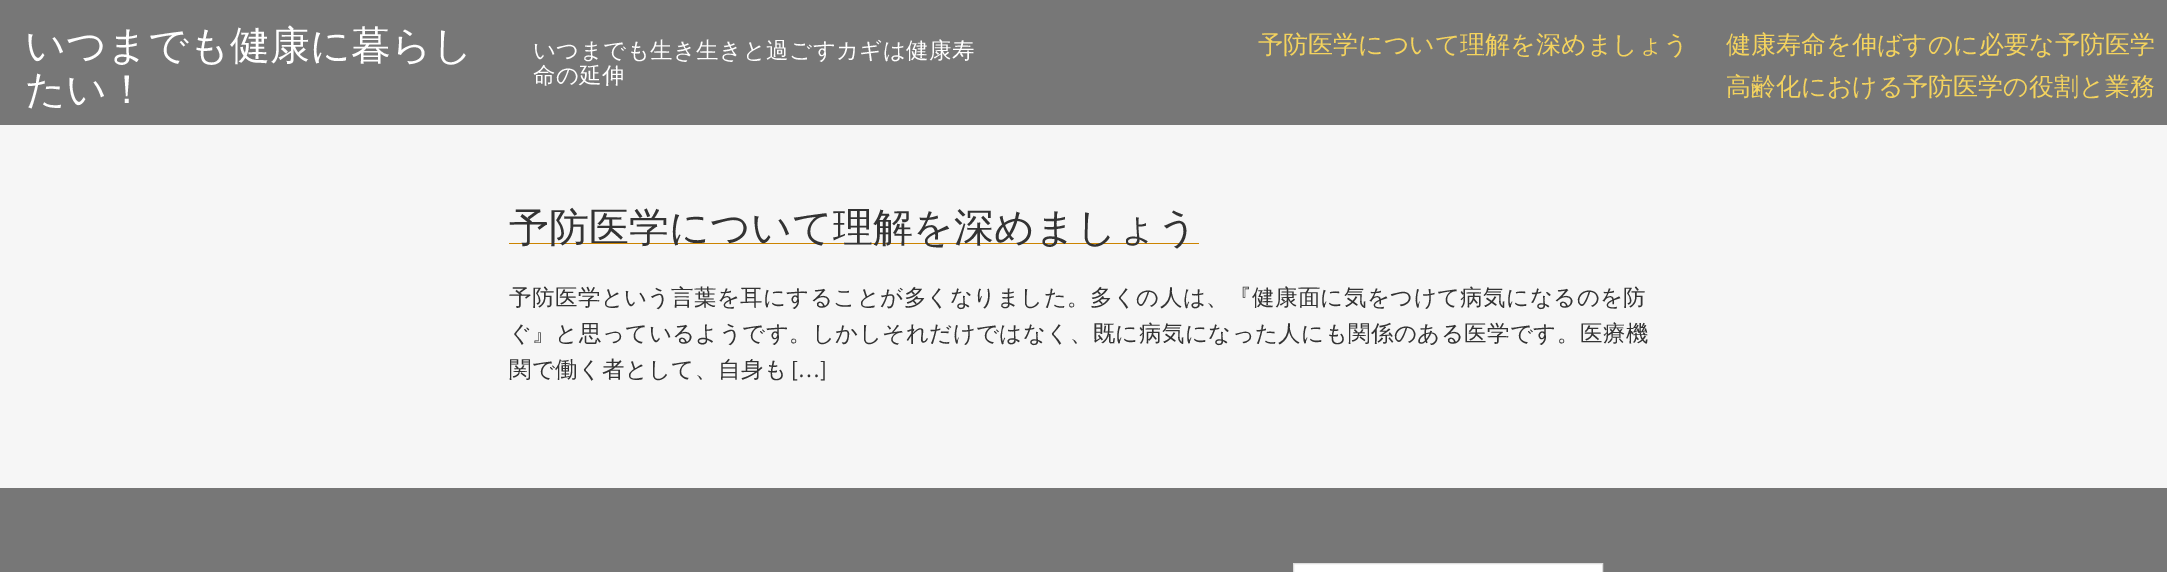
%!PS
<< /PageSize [2167 572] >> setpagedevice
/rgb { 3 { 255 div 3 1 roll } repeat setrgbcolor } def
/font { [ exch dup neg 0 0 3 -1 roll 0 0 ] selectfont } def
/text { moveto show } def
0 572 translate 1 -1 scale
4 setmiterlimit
246 246 246 rgb
0 0 2167 572 rectfill
119 119 119 rgb
0 0 2167 125 rectfill
204 132 0 rgb
509 243 690 1 rectfill
119 119 119 rgb
0 488 2167 84 rectfill
255 255 255 rgb
1293.5 563.5 moveto 309 0 rlineto 0 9 rlineto -309 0 rlineto closepath gsave fill grestore
221 221 221 rgb
stroke
/WenQuanYiZenHei-Medium 40 font
255 255 255 rgb
(いつまでも健康に暮らし) 25 59 text
(たい！) 25 103 text
/WenQuanYiZenHei-Medium 22.5 font
533 58 moveto 0.4 0 (いつまでも生き生きと過ごすカギは健康寿) ashow
533 83 moveto 0.4 0 (命の延伸) ashow
/WenQuanYiZenHei-Medium 25 font
244 211 94 rgb
(予防医学について理解を深めましょう) 1258 53 text
(健康寿命を伸ばすのに必要な予防医学) 1726 53 text
(高齢化における予防医学の役割と業務) 1726 95 text
/WenQuanYiZenHei-Medium 40 font
51 51 51 rgb
(予防医学について理解を深めましょう) 509 241 text
/WenQuanYiZenHei-Medium 22.5 font
509 305 moveto 0.4 0 (予防医学という言葉を耳にすることが多くなりました。多くの人は、『健康面に気をつけて病気になるのを防) ashow
509 341 moveto 0.4 0 (ぐ』と思っているようです。しかしそれだけではなく、既に病気になった人にも関係のある医学です。医療機) ashow
509 377 moveto 0.4 0 (関で働く者として、自身も) ashow
/SourceSansPro-Regular 22.5 font
791 377 moveto 0.4 0 ([…]) ashow
showpage
